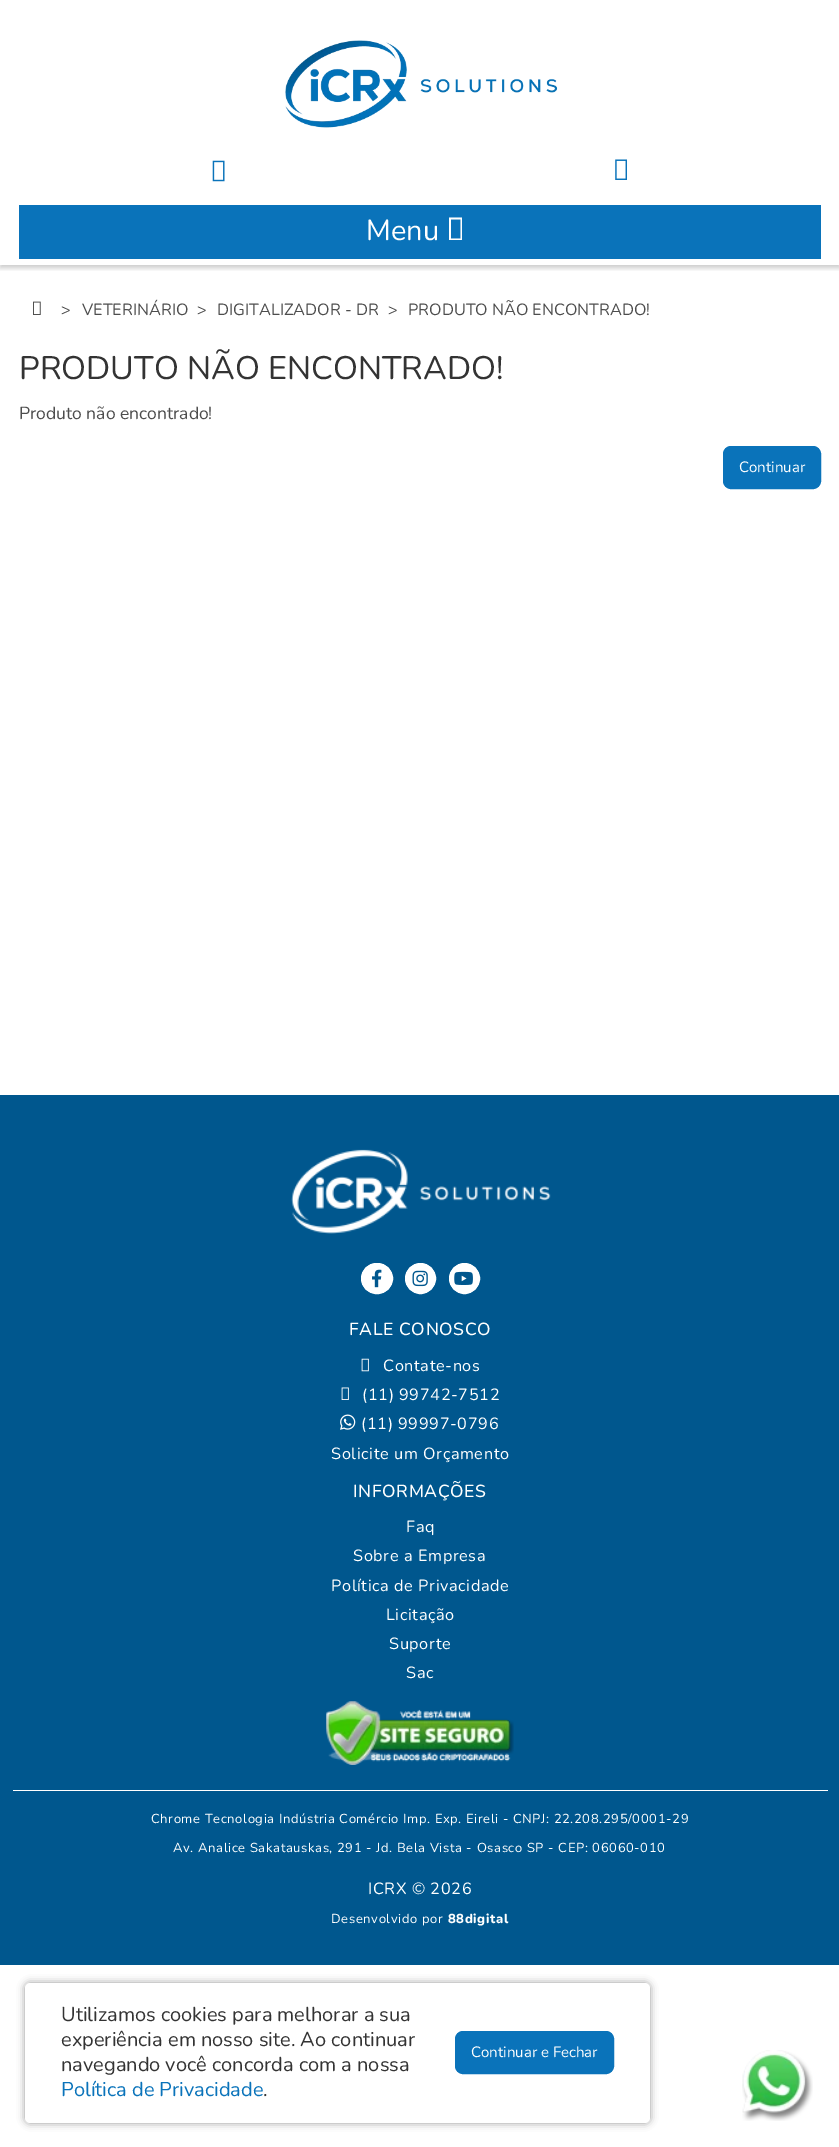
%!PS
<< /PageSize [839 2147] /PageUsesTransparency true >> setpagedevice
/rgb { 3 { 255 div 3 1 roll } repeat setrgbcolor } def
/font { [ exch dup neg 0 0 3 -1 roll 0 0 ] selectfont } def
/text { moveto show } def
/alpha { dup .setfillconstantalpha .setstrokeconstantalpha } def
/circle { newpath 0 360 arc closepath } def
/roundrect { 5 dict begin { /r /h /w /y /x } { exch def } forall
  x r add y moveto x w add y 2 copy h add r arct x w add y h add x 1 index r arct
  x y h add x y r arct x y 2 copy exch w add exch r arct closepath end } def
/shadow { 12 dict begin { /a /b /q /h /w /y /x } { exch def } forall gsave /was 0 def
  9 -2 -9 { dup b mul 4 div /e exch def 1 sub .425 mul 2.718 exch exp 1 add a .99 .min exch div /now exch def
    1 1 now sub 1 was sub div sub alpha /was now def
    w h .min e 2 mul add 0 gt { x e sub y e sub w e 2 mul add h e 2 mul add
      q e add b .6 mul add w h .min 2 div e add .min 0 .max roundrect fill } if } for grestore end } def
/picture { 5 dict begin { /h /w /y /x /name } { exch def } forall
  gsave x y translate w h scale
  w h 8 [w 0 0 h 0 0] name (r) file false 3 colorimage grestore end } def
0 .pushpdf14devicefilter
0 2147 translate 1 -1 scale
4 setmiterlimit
255 255 255 rgb
0 0 839 2147 rectfill
gsave
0 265 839 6 rectclip
0 0 0 rgb
0 3 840 265 0 2.5 0.2 shadow
grestore
(img_01.rgb) 285 40 273 88 picture
(img_02.rgb) 212 160 13 22 picture
(img_03.rgb) 615 159 12 21 picture
10 115 186 rgb
19 205 802 54 rectfill
255 255 255 rgb
449 240 moveto 0 -22.5 rlineto 13 0 rlineto 0 22.5 rlineto closepath 451 238.5 moveto 9.5 0 rlineto 0 -19 rlineto -9.5 0 rlineto closepath fill
(img_04.rgb) 33 301 8 14 picture
10 115 186 rgb
723.5 446.5 97 42 7.5 roundrect gsave fill grestore
stroke
0 87 142 rgb
0 1095 839 870 rectfill
(img_05.rgb) 291 1149 260 85 picture
255 255 255 rgb
361.5 1263.5 31 30 15 roundrect gsave fill grestore
stroke
(img_06.rgb) 372 1269 10 19 picture
420.5 1278.5 15 circle gsave fill grestore
stroke
(img_07.rgb) 412 1270 16 17 picture
464.5 1278.5 15 circle gsave fill grestore
stroke
(img_08.rgb) 454 1271 19 14 picture
(img_09.rgb) 361 1358 8 14 picture
(img_10.rgb) 341 1387 8 13 picture
(img_11.rgb) 340 1414 16 16 picture
(img_12.rgb) 326 1701 188 64 picture
13 1790 815 1 rectfill
0 0 0 rgb
25 1983 625 140 5 4 0.4 shadow
255 255 255 rgb
25 1983 625 140 5 roundrect fill
10 115 186 rgb
455.5 2031.5 158 42 7.5 roundrect gsave fill grestore
stroke
(img_13.rgb) 742 2050 71 71 picture
/Nunito-Regular 29 font
255 255 255 rgb
(Menu) 366 240 text
/Nunito-Regular 16.25 font
77 77 77 rgb
(>) 61 315 text
(VETERINÁRIO) 82 315 text
(>) 197 315 text
(DIGITALIZADOR - DR) 217 315 text
(>) 388 315 text
(PRODUTO NÃO ENCONTRADO!) 408 315 text
/Nunito-Regular 32.5 font
51 51 51 rgb
(PRODUTO NÃO ENCONTRADO!) 19 379 text
/Nunito-Regular 17.5 font
77 77 77 rgb
(Produto não encontrado!) 19 419 text
/Nunito-Regular 15 font
255 255 255 rgb
(Continuar) 739 472 text
/Nunito-Medium 17.5 font
349 1335 moveto 0.62 0 (FALE CONOSCO) ashow
/Nunito-Regular 16.25 font
383 1371 moveto 0.62 0 (Contate-nos) ashow
362 1400 moveto 0.62 0 (\(11\) 99742-7512) ashow
361 1429 moveto 0.62 0 (\(11\) 99997-0796) ashow
331 1459 moveto 0.62 0 (Solicite um Orçamento) ashow
/Nunito-Medium 17.5 font
353 1497 moveto 0.62 0 (INFORMAÇÕES) ashow
/Nunito-Regular 16.25 font
406 1532 moveto 0.62 0 (Faq) ashow
353 1561 moveto 0.62 0 (Sobre a Empresa) ashow
331 1591 moveto 0.62 0 (Política de Privacidade) ashow
386 1620 moveto 0.62 0 (Licitação) ashow
389 1649 moveto 0.62 0 (Suporte) ashow
406 1678 moveto 0.62 0 (Sac) ashow
/Nunito-Regular 13 font
151 1823 moveto 0.62 0 (Chrome Tecnologia Indústria Comércio Imp. Exp. Eireli - CNPJ: 22.208.295/0001-29) ashow
173 1852 moveto 0.62 0 (Av. Analice Sakatauskas, 291 - Jd. Bela Vista - Osasco SP - CEP: 06060-010) ashow
/Nunito-Regular 16.25 font
368 1894 moveto 0.62 0 (ICRX © 2026) ashow
/Nunito-Regular 13 font
331 1923 moveto 0.62 0 (Desenvolvido por) ashow
/Nunito-ExtraBold 13 font
448 1923 moveto 0.62 0 (88digital) ashow
/Nunito-Regular 20 font
51 51 51 rgb
(Utilizamos cookies para melhorar a sua) 61 2021 text
(experiência em nosso site. Ao continuar) 61 2046 text
(navegando você concorda com a nossa) 61 2071 text
10 115 186 rgb
(Política de Privacidade) 61 2096 text
51 51 51 rgb
(.) 263 2096 text
/Nunito-Regular 15 font
255 255 255 rgb
(Continuar e Fechar) 471 2057 text
.poppdf14devicefilter showpage
